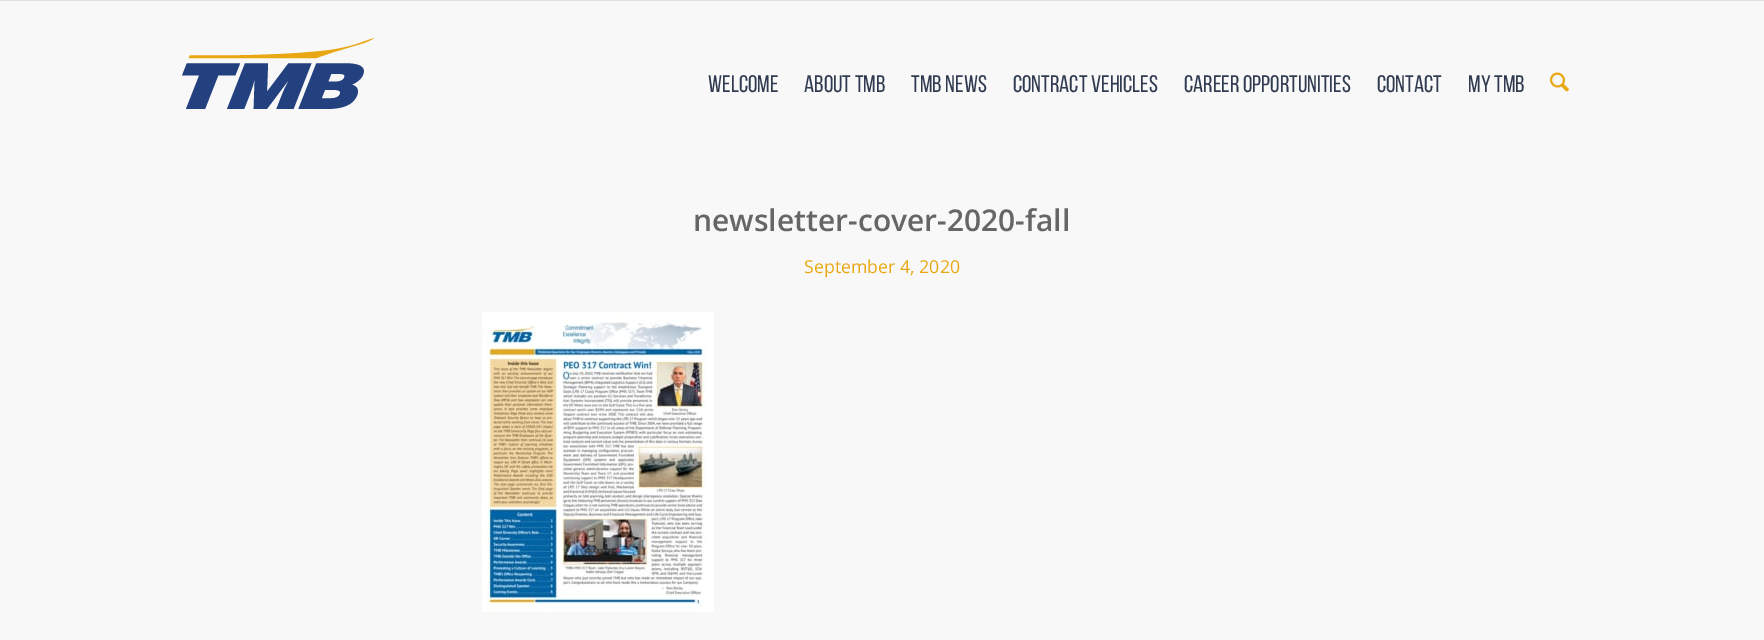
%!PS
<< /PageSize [1764 640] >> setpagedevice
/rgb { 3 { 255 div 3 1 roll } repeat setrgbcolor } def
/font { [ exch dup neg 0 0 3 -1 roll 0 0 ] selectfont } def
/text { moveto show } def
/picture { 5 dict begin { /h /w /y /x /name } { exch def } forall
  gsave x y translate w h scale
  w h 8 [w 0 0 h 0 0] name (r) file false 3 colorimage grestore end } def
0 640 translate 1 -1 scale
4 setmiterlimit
248 248 248 rgb
0 0 1764 640 rectfill
225 225 225 rgb
0 0 1764 1 rectfill
(img_01.rgb) 182 38 192 71 picture
(img_02.rgb) 1550 72 19 20 picture
(img_03.rgb) 482 312 232 300 picture
/BebasNeue-Regular 24 font
48 59 81 rgb
(Welcome) 708 92 text
(About TMB) 804 92 text
(TMB News) 911 92 text
(Contract Vehicles) 1013 92 text
(Career Opportunities) 1184 92 text
(Contact) 1377 92 text
(My TMB) 1468 92 text
/OpenSans-SemiBold 30 font
102 102 102 rgb
(newsletter-cover-2020-fall) 693 231 text
/OpenSans-Regular 17.75 font
232 168 19 rgb
(September 4, 2020) 804 273 text
showpage
